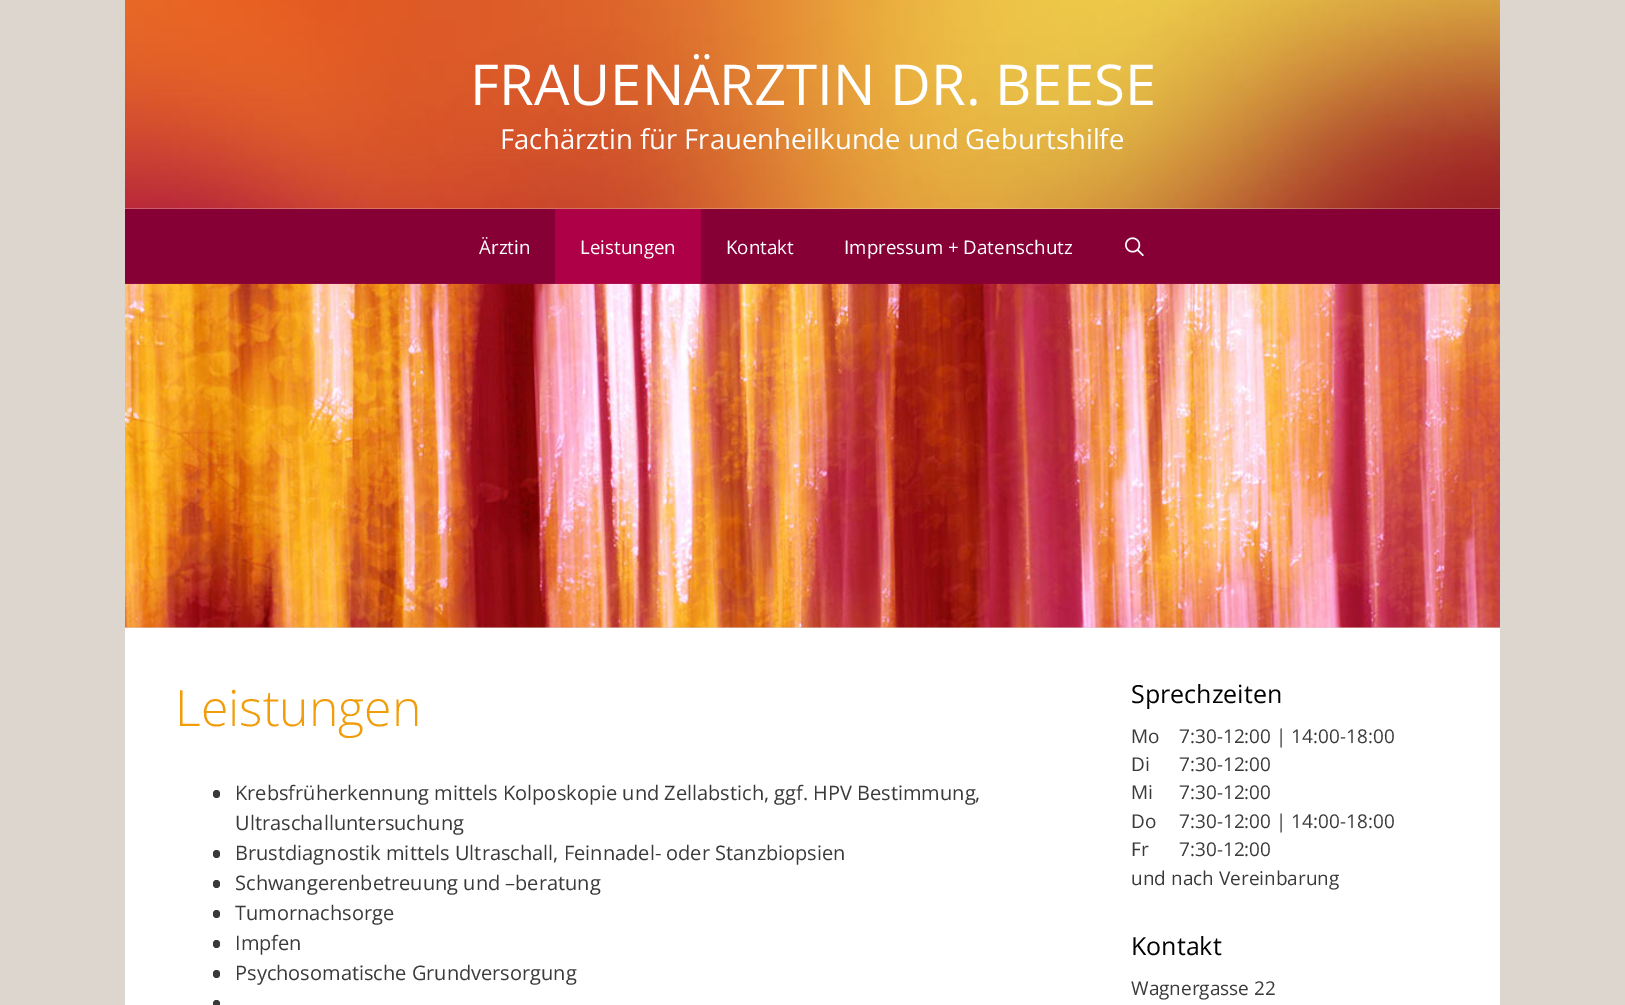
%!PS
<< /PageSize [1625 1005] >> setpagedevice
/rgb { 3 { 255 div 3 1 roll } repeat setrgbcolor } def
/font { [ exch dup neg 0 0 3 -1 roll 0 0 ] selectfont } def
/text { moveto show } def
/roundrect { 5 dict begin { /r /h /w /y /x } { exch def } forall
  x r add y moveto x w add y 2 copy h add r arct x w add y h add x 1 index r arct
  x y h add x y r arct x y 2 copy exch w add exch r arct closepath end } def
/picture { 5 dict begin { /h /w /y /x /name } { exch def } forall
  gsave x y translate w h scale
  w h 8 [w 0 0 h 0 0] name (r) file false 3 colorimage grestore end } def
0 1005 translate 1 -1 scale
4 setmiterlimit
221 214 206 rgb
0 0 1625 1005 rectfill
(img_01.rgb) 125 0 1375 209 picture
134 0 54 rgb
125 209 1375 75 rectfill
174 0 70 rgb
555 209 146 75 rectfill
(img_02.rgb) 1125 237 19 19 picture
(img_03.rgb) 125 283 1375 345 picture
255 255 255 rgb
125 628 1375 377 rectfill
58 58 58 rgb
213 790 7 8 3.5 roundrect fill
213 850 7 8 3.5 roundrect fill
213 880 7 8 3.5 roundrect fill
213 910 7 8 3.5 roundrect fill
213 940 7 8 3.5 roundrect fill
213 970 7 8 3.5 roundrect fill
213 1000 7 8 3.5 roundrect fill
/OpenSans-Regular 56.25 font
255 255 255 rgb
(FRAUENÄRZTIN DR. BEESE) 470 105 text
/OpenSans-Regular 27.5 font
(Fachärztin für Frauenheilkunde und Geburtshilfe) 500 149 text
/OpenSans-Regular 18.75 font
(Ärztin) 479 254 text
(Leistungen) 580 254 text
(Kontakt) 726 254 text
(Impressum + Datenschutz) 844 254 text
/OpenSans-Light 50 font
241 157 11 rgb
(Leistungen) 175 726 text
/OpenSans-Regular 20 font
58 58 58 rgb
(Krebsfrüherkennung mittels Kolposkopie und Zellabstich, ggf. HPV Bestimmung,) 235 800 text
(Ultraschalluntersuchung) 235 830 text
(Brustdiagnostik mittels Ultraschall, Feinnadel- oder Stanzbiopsien) 235 860 text
(Schwangerenbetreuung und –beratung) 235 890 text
(Tumornachsorge) 235 920 text
(Impfen) 235 950 text
(Psychosomatische Grundversorgung) 235 980 text
/OpenSans-Regular 25 font
0 0 0 rgb
(Sprechzeiten) 1131 703 text
/OpenSans-Regular 19 font
58 58 58 rgb
(Mo) 1131 743 text
(7:30-12:00 | 14:00-18:00) 1179 743 text
(Di) 1131 771 text
(7:30-12:00) 1179 771 text
(Mi) 1131 799 text
(7:30-12:00) 1179 799 text
(Do) 1131 828 text
(7:30-12:00 | 14:00-18:00) 1179 828 text
(Fr) 1131 856 text
(7:30-12:00) 1179 856 text
(und nach Vereinbarung) 1131 885 text
/OpenSans-Regular 25 font
0 0 0 rgb
(Kontakt) 1131 955 text
/OpenSans-Regular 19 font
58 58 58 rgb
(Wagnergasse 22) 1131 995 text
showpage
